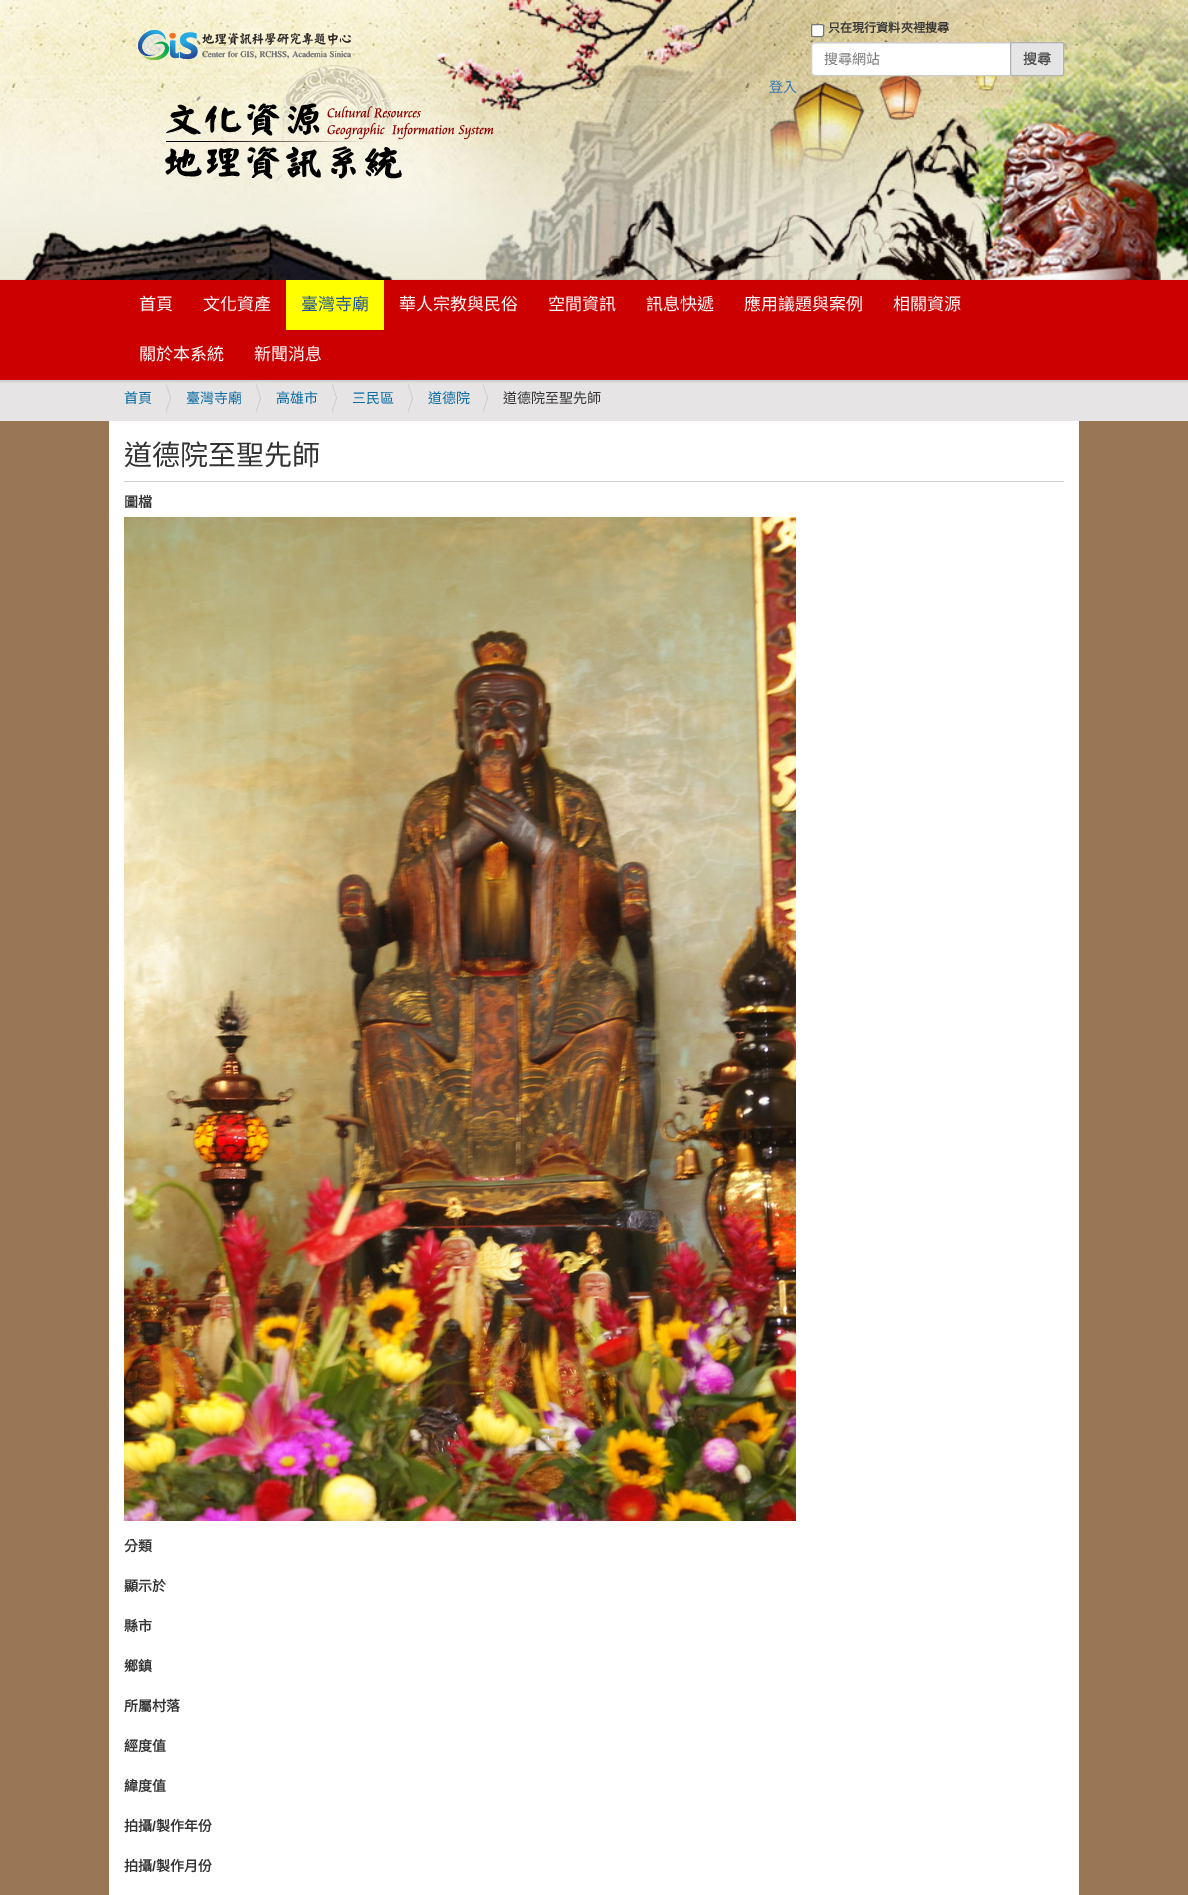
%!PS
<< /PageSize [1188 1895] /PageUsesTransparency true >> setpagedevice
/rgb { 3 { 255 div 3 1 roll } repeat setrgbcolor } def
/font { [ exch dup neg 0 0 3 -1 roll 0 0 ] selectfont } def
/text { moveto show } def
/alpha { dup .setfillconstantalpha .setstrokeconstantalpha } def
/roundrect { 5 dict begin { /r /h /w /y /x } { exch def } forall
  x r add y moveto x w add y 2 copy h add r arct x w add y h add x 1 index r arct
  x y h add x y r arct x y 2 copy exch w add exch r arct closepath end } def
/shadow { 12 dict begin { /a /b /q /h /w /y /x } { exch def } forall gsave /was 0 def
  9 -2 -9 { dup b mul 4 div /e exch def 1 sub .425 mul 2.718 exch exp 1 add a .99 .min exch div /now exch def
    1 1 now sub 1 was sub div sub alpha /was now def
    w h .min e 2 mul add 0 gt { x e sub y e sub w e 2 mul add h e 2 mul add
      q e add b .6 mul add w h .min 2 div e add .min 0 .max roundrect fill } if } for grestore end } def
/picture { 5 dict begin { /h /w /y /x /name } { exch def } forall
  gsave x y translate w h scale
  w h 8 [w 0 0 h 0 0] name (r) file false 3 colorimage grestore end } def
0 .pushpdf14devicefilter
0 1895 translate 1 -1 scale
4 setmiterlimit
153 119 85 rgb
0 0 1188 1895 rectfill
(img_01.rgb) 0 0 1188 280 picture
(img_02.rgb) 138 30 213 30 picture
255 255 255 rgb
811.5 24.5 12 12 1.5 roundrect gsave fill grestore
118 118 118 rgb
stroke
255 255 255 rgb
815 42 moveto 196 0 rlineto 0 34 rlineto -196 0 rlineto -2 0 -4 -2 -4 -4 rcurveto 0 -26 rlineto 0 -2 2 -4 4 -4 rcurveto closepath fill
236 236 236 rgb
815 44 moveto 195 0 rlineto 0 -1 rlineto -195 0 rlineto -2 0 -3 2 -3 4 rcurveto 0 -2 1 -3 3 -3 rcurveto closepath fill
204 204 204 rgb
815 42.5 moveto 195.5 0 rlineto 0 33 rlineto -195.5 0 rlineto -2 0 -3.5 -1.5 -3.5 -3.5 rcurveto 0 -26 rlineto 0 -2 1.5 -3.5 3.5 -3.5 rcurveto closepath stroke
229 229 229 rgb
1010.5 42.5 53 33 1.5 roundrect gsave fill grestore
178 178 178 rgb
stroke
(img_03.rgb) 165 65 329 114 picture
230 228 228 rgb
0 380 1188 41 rectfill
0 0 0 rgb
0 281 1188 100 0 1.5 0.17 shadow
204 0 0 rgb
0 280 1188 100 rectfill
255 255 0 rgb
286 280 98 50 rectfill
204 204 204 rgb
166 413 moveto 0 -30 rlineto 5 15 rlineto closepath fill
230 228 228 rgb
165 413 moveto 0 -30 rlineto 5 15 rlineto closepath fill
204 204 204 rgb
256 413 moveto 0 -30 rlineto 5 15 rlineto closepath fill
230 228 228 rgb
255 413 moveto 0 -30 rlineto 5 15 rlineto closepath fill
204 204 204 rgb
332 413 moveto 0 -30 rlineto 5 15 rlineto closepath fill
230 228 228 rgb
331 413 moveto 0 -30 rlineto 5 15 rlineto closepath fill
204 204 204 rgb
408 413 moveto 0 -30 rlineto 5 15 rlineto closepath fill
230 228 228 rgb
407 413 moveto 0 -30 rlineto 5 15 rlineto closepath fill
204 204 204 rgb
483 413 moveto 0 -30 rlineto 5 15 rlineto closepath fill
230 228 228 rgb
482 413 moveto 0 -30 rlineto 5 15 rlineto closepath fill
255 255 255 rgb
109 421 970 1474 rectfill
204 204 204 rgb
124 481 940 1 rectfill
(img_04.rgb) 124 517 672 1004 picture
/NotoSansCJKTC-Bold 12.1 font
51 51 51 rgb
(只在現行資料夾裡搜尋) 828 32 text
/NotoSansCJKTC-Regular 14 font
119 119 119 rgb
(搜尋網站) 824 64 text
/NotoSansCJKTC-Bold 14 font
77 77 77 rgb
(搜尋) 1023 64 text
/NotoSansCJKTC-Regular 14 font
51 122 183 rgb
(登入) 769 92 text
/NotoSansCJKTC-Regular 17 font
255 255 255 rgb
(首頁) 139 310 text
(文化資產) 203 310 text
34 85 153 rgb
(臺灣寺廟) 301 310 text
255 255 255 rgb
(華人宗教與民俗) 399 310 text
(空間資訊) 548 310 text
(訊息快遞) 646 310 text
(應用議題與案例) 744 310 text
(相關資源) 893 310 text
(關於本系統) 139 360 text
(新聞消息) 254 360 text
/NotoSansCJKTC-Regular 14 font
8 108 163 rgb
(首頁) 124 403 text
(臺灣寺廟) 186 403 text
(高雄市) 276 403 text
(三民區) 352 403 text
(道德院) 428 403 text
51 51 51 rgb
(道德院至聖先師) 503 403 text
/NotoSansCJKTC-Regular 28 font
(道德院至聖先師) 124 465 text
/NotoSansCJKTC-Bold 14 font
(圖檔) 124 507 text
(分類) 124 1551 text
(顯示於) 124 1591 text
(縣市) 124 1631 text
(鄉鎮) 124 1671 text
(所屬村落) 124 1711 text
(經度值) 124 1751 text
(緯度值) 124 1791 text
(拍攝) 124 1831 text
/LiberationSans-Bold 14 font
(/) 152 1831 text
/NotoSansCJKTC-Bold 14 font
(製作年份) 156 1831 text
(拍攝) 124 1871 text
/LiberationSans-Bold 14 font
(/) 152 1871 text
/NotoSansCJKTC-Bold 14 font
(製作月份) 156 1871 text
.poppdf14devicefilter showpage
